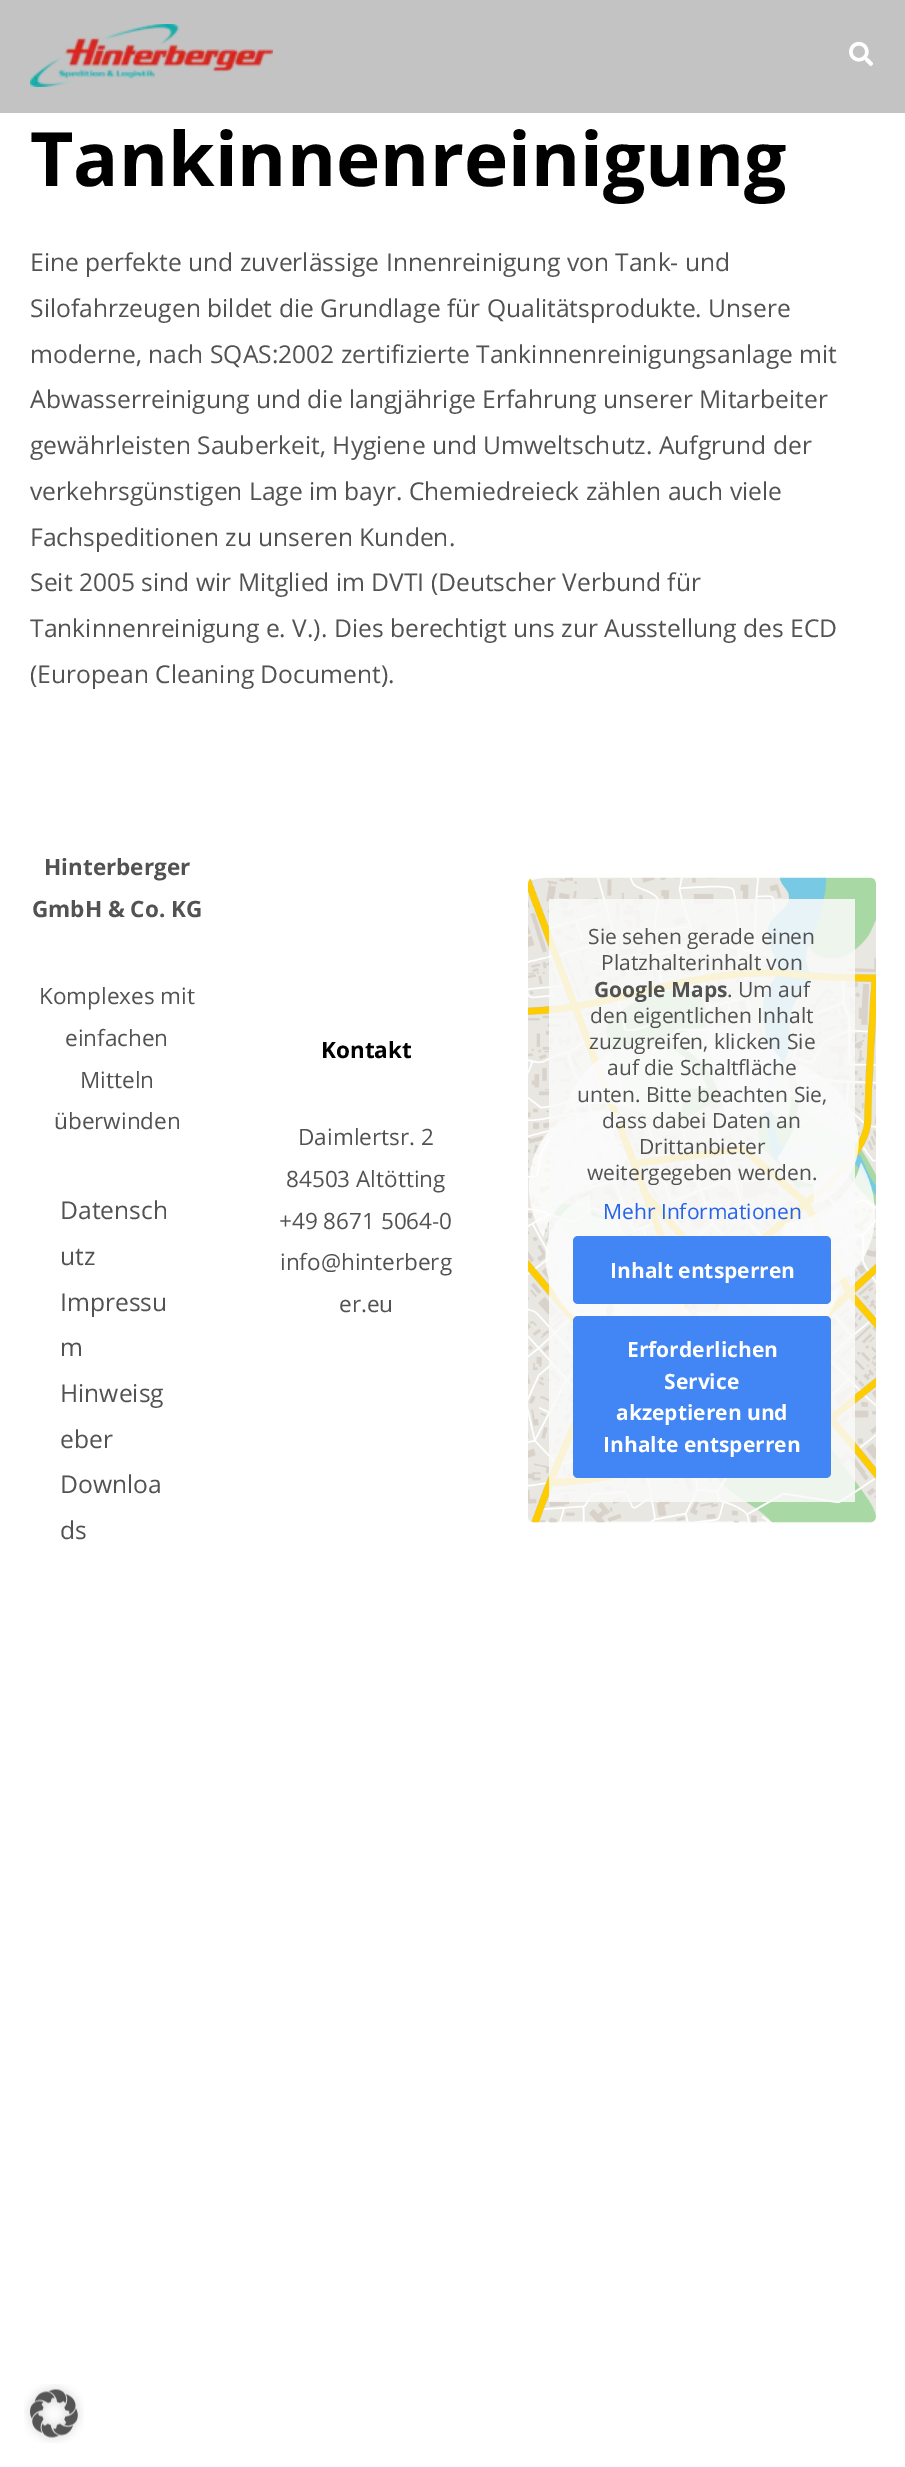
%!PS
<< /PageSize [905 2467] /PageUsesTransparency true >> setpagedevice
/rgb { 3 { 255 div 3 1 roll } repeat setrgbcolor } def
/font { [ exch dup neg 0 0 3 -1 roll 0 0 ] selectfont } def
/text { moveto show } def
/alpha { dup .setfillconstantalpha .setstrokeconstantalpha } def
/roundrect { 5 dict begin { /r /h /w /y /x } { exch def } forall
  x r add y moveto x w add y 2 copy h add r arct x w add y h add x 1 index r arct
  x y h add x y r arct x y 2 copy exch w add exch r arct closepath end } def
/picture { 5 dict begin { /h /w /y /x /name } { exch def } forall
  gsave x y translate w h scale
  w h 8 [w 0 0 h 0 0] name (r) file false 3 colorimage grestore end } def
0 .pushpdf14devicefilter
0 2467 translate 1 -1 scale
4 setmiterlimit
255 255 255 rgb
0 0 905 2467 rectfill
195 195 195 rgb
0 0 905 113 rectfill
(img_01.rgb) 30 24 243 63 picture
(img_02.rgb) 849 41 24 26 picture
250 250 250 rgb
528 878 348 645 6 roundrect fill
(img_03.rgb) 528 877 348 646 picture
0.85 alpha
549 899 306 603 rectfill
1 alpha
66 133 244 rgb
573 1236 258 68 5 roundrect fill
573 1316 258 162 5 roundrect fill
(img_04.rgb) 24 2384 60 59 picture
/OpenSans-Bold 75 font
0 0 0 rgb
(Tankinnenreinigung) 30 186 text
/OpenSans-Regular 24.6 font
82 82 82 rgb
(Eine perfekte und zuverlässige Innenreinigung von Tank- und) 30 271 text
(Silofahrzeugen bildet die Grundlage für Qualitätsprodukte. Unsere) 30 317 text
(moderne, nach SQAS:2002 zertifizierte Tankinnenreinigungsanlage mit) 30 363 text
(Abwasserreinigung und die langjährige Erfahrung unserer Mitarbeiter) 30 408 text
(gewährleisten Sauberkeit, Hygiene und Umweltschutz. Aufgrund der) 30 454 text
(verkehrsgünstigen Lage im bayr. Chemiedreieck zählen auch viele) 30 500 text
(Fachspeditionen zu unseren Kunden.) 30 546 text
(Seit 2005 sind wir Mitglied im DVTI \(Deutscher Verbund für) 30 591 text
(Tankinnenreinigung e. V.\). Dies berechtigt uns zur Ausstellung des ECD) 30 637 text
(\(European Cleaning Document\).) 30 683 text
/OpenSans-Bold 22.5 font
(Hinterberger) 44 875 text
(GmbH & Co. KG) 32 917 text
/OpenSans-Regular 22.5 font
(Komplexes mit) 39 1004 text
(einfachen) 65 1046 text
(Mitteln) 80 1088 text
(überwinden) 54 1129 text
/OpenSans-Regular 24.6 font
(Datensch) 60 1219 text
(utz) 60 1265 text
(Impressu) 60 1311 text
(m) 60 1356 text
(Hinweisg) 60 1402 text
(eber) 60 1448 text
(Downloa) 60 1493 text
(ds) 60 1539 text
/OpenSans-Bold 22.5 font
0 0 0 rgb
(Kontakt) 321 1058 text
/OpenSans-Regular 22.5 font
82 82 82 rgb
(Daimlertsr. 2) 298 1145 text
(84503 Altötting) 286 1187 text
(+49 8671 5064-0) 279 1229 text
(info@hinterberg) 280 1270 text
(er.eu) 339 1312 text
/OpenSans-Regular 21 font
(Sie sehen gerade einen) 588 944 text
(Platzhalterinhalt von) 601 970 text
/OpenSans-Bold 21 font
(Google Maps) 594 997 text
/OpenSans-Regular 21 font
(. Um auf) 727 997 text
(den eigentlichen Inhalt) 590 1023 text
(zuzugreifen, klicken Sie) 589 1049 text
(auf die Schaltfläche) 607 1075 text
(unten. Bitte beachten Sie,) 577 1102 text
(dass dabei Daten an) 602 1128 text
(Drittanbieter) 639 1154 text
(weitergegeben werden.) 587 1180 text
37 99 235 rgb
(Mehr Informationen) 603 1219 text
/OpenSans-Bold 21 font
255 255 255 rgb
(Inhalt entsperren) 610 1278 text
(Erforderlichen) 627 1357 text
(Service) 664 1389 text
(akzeptieren und) 616 1420 text
(Inhalte entsperren) 603 1452 text
.poppdf14devicefilter showpage
